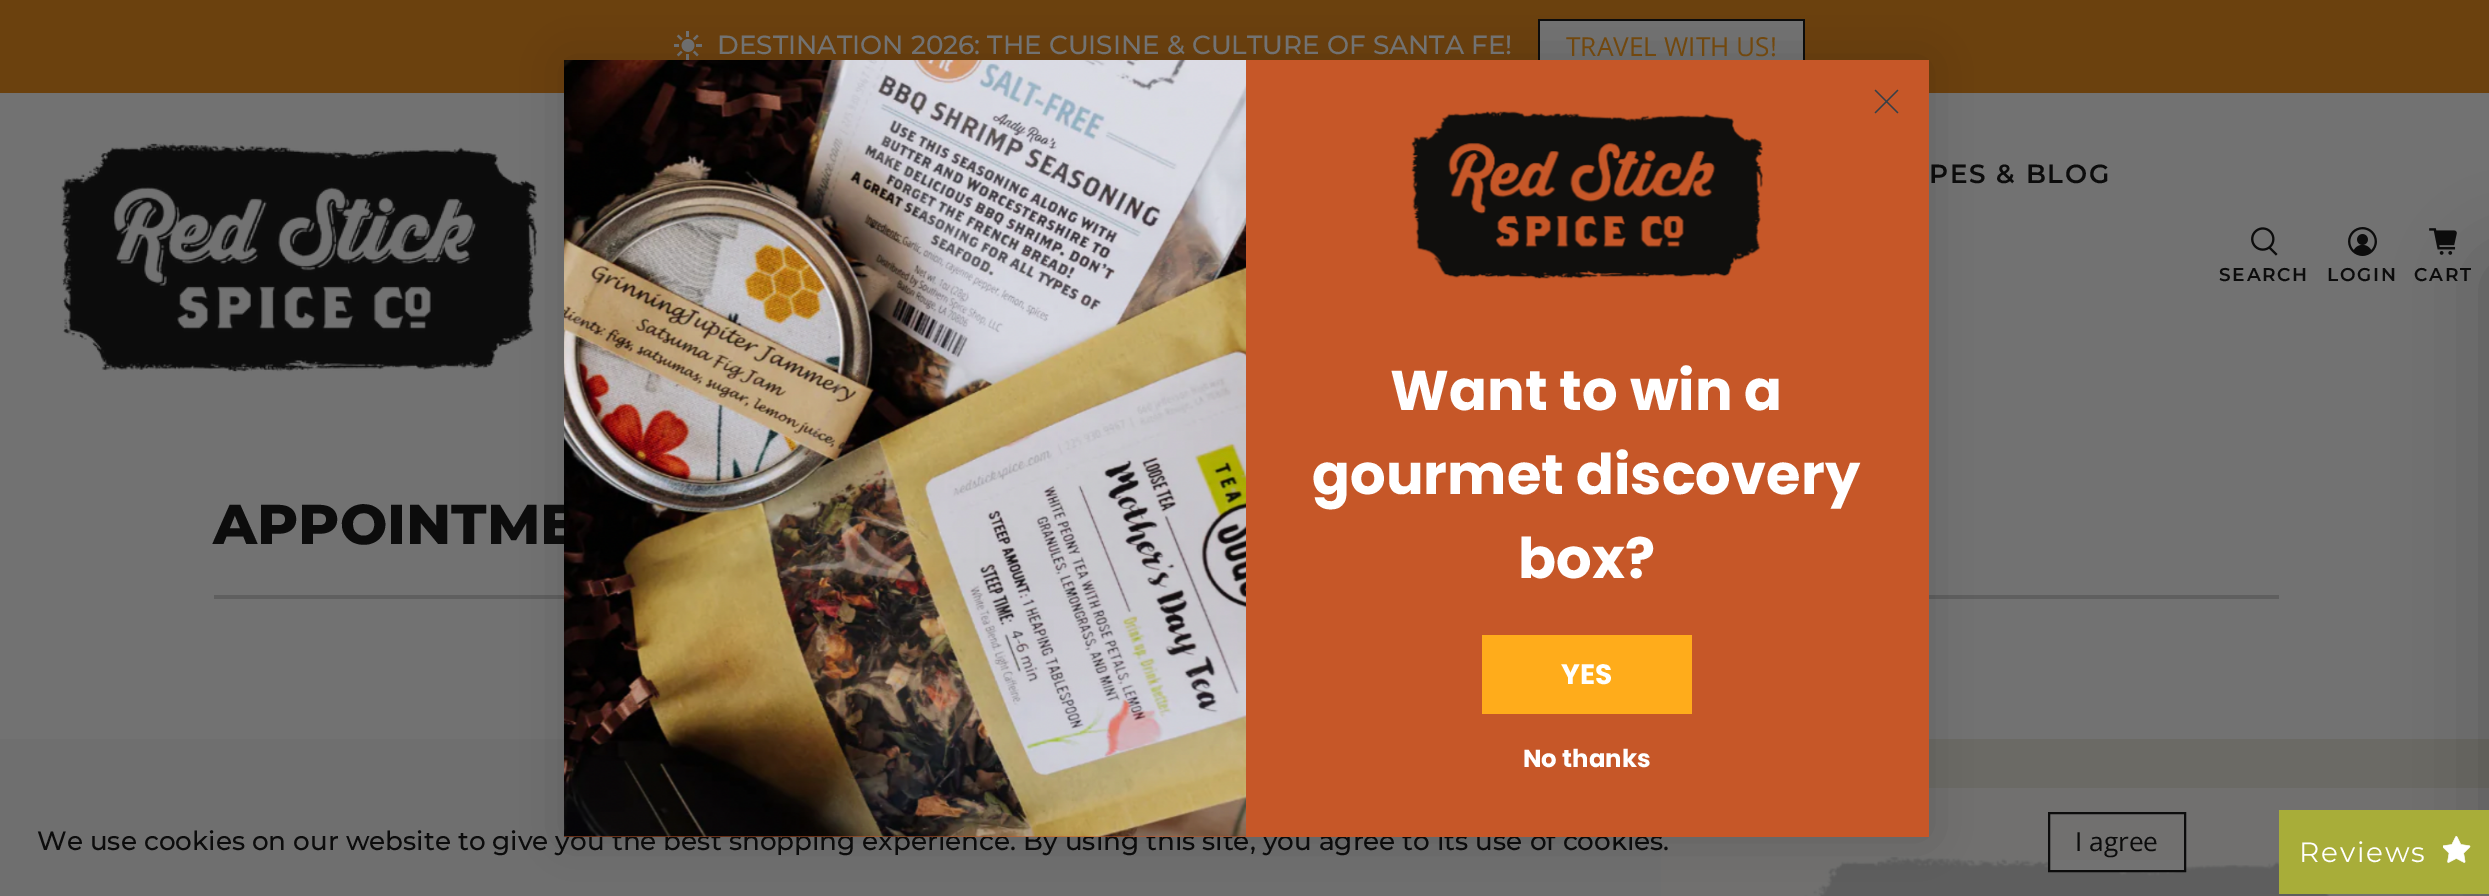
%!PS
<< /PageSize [2489 896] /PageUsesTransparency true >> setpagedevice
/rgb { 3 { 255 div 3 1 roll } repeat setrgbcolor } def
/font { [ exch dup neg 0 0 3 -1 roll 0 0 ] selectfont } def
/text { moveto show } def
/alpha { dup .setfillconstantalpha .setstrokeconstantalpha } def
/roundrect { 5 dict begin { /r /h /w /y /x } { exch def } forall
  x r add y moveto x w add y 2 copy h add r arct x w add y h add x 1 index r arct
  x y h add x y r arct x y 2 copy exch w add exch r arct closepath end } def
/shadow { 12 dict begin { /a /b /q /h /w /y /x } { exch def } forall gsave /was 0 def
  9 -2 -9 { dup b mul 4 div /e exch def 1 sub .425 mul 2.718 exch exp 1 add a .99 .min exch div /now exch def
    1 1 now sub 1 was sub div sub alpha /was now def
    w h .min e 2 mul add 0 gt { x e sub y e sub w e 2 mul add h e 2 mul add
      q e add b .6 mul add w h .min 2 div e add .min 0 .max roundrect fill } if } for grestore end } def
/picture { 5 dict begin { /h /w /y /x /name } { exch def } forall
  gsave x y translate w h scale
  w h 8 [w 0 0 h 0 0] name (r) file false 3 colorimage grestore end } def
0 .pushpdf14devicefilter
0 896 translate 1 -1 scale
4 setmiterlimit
114 114 114 rgb
0 0 2489 896 rectfill
107 65 14 rgb
0 0 2489 93 rectfill
(img_01.rgb) 674 31 28 29 picture
114 114 114 rgb
1540 21 263 39 rectfill
12 12 12 rgb
1538 19 266 2 rectfill
1803 19 2 41 rectfill
1538 19 2 41 rectfill
(img_02.rgb) 61 142 476 231 picture
(img_03.rgb) 2251 227 27 29 picture
(img_04.rgb) 2348 227 29 29 picture
(img_05.rgb) 2429 228 28 27 picture
95 95 95 rgb
214 595 2065 4 rectfill
111 111 111 rgb
0 739 1661 157 rectfill
107 106 101 rgb
1661 739 828 157 rectfill
(img_08.rgb) 1803 855 527 41 picture
0.8 alpha
114 114 114 rgb
1661 788 828 108 rectfill
1 alpha
0 0 0 rgb
564 60 1365 777 0 26 0.15 shadow
114 114 114 rgb
2050 860 134 10 rectfill
12 12 12 rgb
2 setlinewidth
2049 813 136 58 rectstroke
0 0 0 rgb
2489 266 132 627 0 44 0.2 shadow
168 173 57 rgb
2279 810 210 84 rectfill
(img_09.rgb) 2443 836 28 27 picture
/Montserrat-Medium 26.25 font
114 114 114 rgb
(DESTINATION 2026: THE CUISINE & CULTURE OF SANTA FE!) 717 54 text
/OpenSans-Regular 26.25 font
114 72 14 rgb
(TRAVEL WITH US!) 1566 56 text
/Montserrat-SemiBold 26.25 font
12 12 12 rgb
1929 183 moveto 1.75 0 (PES & BLOG) ashow
/Montserrat-SemiBold 18.5 font
2219 281 moveto 1.75 0 (SEARCH) ashow
2327 281 moveto 1.75 0 (LOGIN) ashow
2414 281 moveto 1.75 0 (CART) ashow
/Montserrat-ExtraBold 56 font
(APPOINTME) 213 544 text
/Montserrat-Medium 26.25 font
(We use cookies on our website to give you the best shopping experience. By using this site, you agree to its use of cookies.) 37 850 text
198 87 40 rgb
564 60 1365 777 rectfill
55 63 71 rgb
1.4 setlinewidth
1 setlinecap
1 setlinejoin
1875.5 90.5 moveto 22 22 rlineto 1875.5 112.5 moveto 22 -22 rlineto closepath stroke
/Poppins-Bold 24.5 font
255 255 255 rgb
(No thanks) 1523 767 text
255 172 27 rgb
1482 635 210 79 rectfill
/Poppins-Bold 28 font
255 255 255 rgb
(YES) 1561 684 text
/Poppins-Bold 56 font
(box?) 1518 578 text
(gourmet discovery) 1312 494 text
(Want to win a) 1390 410 text
(img_07.rgb) 1411 111 352 168 picture
(img_06.rgb) 564 60 682 777 picture
/OpenSans-Regular 26.25 font
12 12 12 rgb
(I agree) 2075 851 text
/Montserrat-Thin 28 font
255 255 255 rgb
2299 862 moveto 1.75 0 (Reviews) ashow
.poppdf14devicefilter showpage
